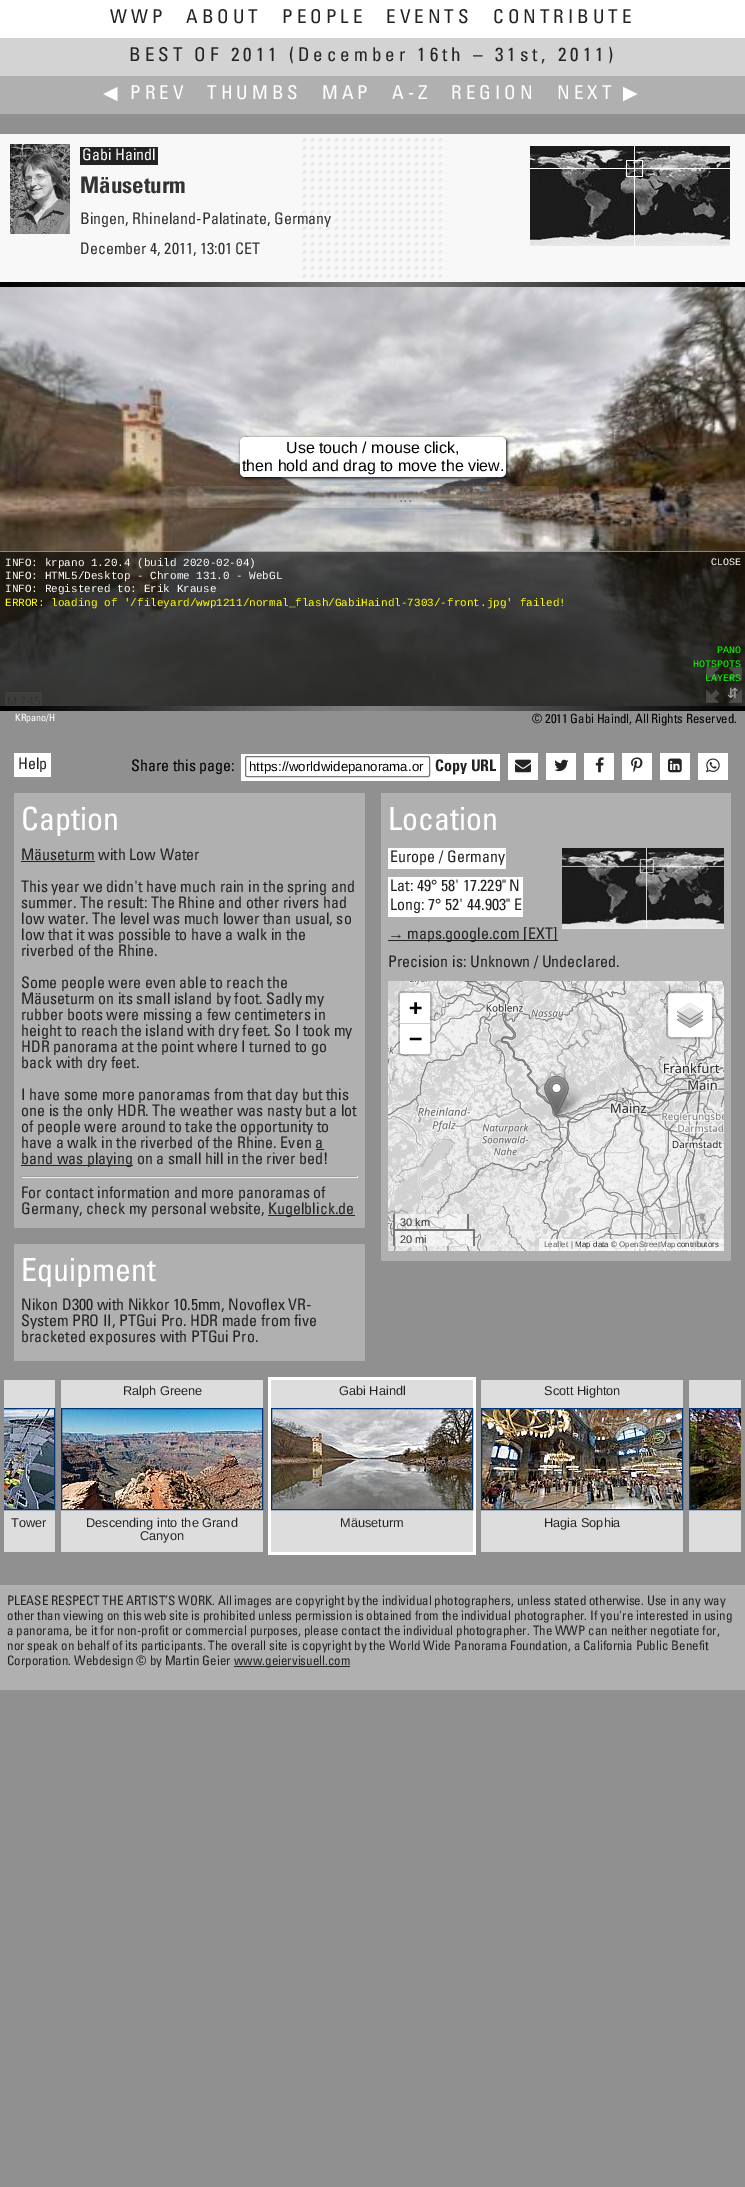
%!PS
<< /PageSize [745 2187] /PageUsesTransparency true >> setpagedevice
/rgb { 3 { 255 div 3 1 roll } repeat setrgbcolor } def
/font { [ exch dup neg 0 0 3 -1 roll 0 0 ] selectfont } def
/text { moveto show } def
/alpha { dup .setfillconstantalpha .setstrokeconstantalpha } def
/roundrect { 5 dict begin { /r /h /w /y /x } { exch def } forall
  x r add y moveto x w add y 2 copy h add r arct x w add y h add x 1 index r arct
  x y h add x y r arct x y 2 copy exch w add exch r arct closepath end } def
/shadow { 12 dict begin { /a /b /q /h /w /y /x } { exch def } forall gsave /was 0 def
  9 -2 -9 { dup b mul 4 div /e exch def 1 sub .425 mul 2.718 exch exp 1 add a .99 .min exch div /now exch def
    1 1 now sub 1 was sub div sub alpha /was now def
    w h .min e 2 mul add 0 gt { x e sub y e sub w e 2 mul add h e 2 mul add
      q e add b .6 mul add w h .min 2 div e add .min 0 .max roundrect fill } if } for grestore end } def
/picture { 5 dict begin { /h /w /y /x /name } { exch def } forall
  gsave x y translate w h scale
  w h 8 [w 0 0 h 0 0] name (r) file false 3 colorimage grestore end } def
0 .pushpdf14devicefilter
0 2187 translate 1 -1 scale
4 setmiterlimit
144 144 144 rgb
0 0 745 2187 rectfill
255 255 255 rgb
0 0 745 38 rectfill
211 211 211 rgb
0 38 745 38 rectfill
176 176 176 rgb
0 76 745 38 rectfill
248 248 248 rgb
0 134 745 148 rectfill
(img_01.rgb) 10 144 60 90 picture
35 35 35 rgb
80 147 78 18 rectfill
(img_02.rgb) 530 146 200 100 picture
(img_03.rgb) 298 138 149 140 picture
(img_04.rgb) 0 282 745 429 picture
(img_05.rgb) 0 287 745 419 picture
0 0 0 rgb
241 438 266 40 5 1.5 1 shadow
255 255 255 rgb
240 437 266 40 5 roundrect fill
gsave
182 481 moveto 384 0 rlineto 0 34 rlineto -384 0 rlineto closepath 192 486 moveto 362 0 rlineto 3 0 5 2 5 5 rcurveto 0 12 rlineto 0 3 -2 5 -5 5 rcurveto -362 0 rlineto -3 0 -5 -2 -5 -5 rcurveto 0 -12 rlineto 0 -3 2 -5 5 -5 rcurveto closepath eoclip newpath
0 0 0 rgb
188 487 372 22 5 1.5 0.11 shadow
grestore
0.11 alpha
187 486 372 22 5 roundrect fill
0.2 alpha
5 692 37 14 rectfill
1 alpha
(img_06.rgb) 706 667 36 36 picture
14 753 37 24 rectfill
241 754 259 27 rectfill
118 118 118 rgb
245.5 756.5 184 20 1.5 roundrect stroke
255 255 255 rgb
508 753 30 27 rectfill
(img_07.rgb) 515 759 16 14 picture
546 753 30 27 rectfill
(img_08.rgb) 554 759 15 13 picture
584 753 30 27 rectfill
(img_09.rgb) 595 757 9 16 picture
622 753 30 27 rectfill
(img_10.rgb) 631 757 12 16 picture
660 753 30 27 rectfill
(img_11.rgb) 668 758 14 15 picture
698 753 30 27 rectfill
(img_12.rgb) 706 758 14 15 picture
176 176 176 rgb
14 793 351 435 rectfill
35 35 35 rgb
21 861 74 1 rectfill
316 1149 8 1 rectfill
21 1165 112 1 rectfill
159 159 159 rgb
21 1176 337 1 rectfill
238 238 238 rgb
357 1176 1 2 rectfill
21 1177 337 1 rectfill
159 159 159 rgb
21 1176 1 2 rectfill
35 35 35 rgb
268 1215 87 1 rectfill
176 176 176 rgb
381 793 350 468 rectfill
255 255 255 rgb
388 848 118 21 rectfill
(img_13.rgb) 562 848 162 81 picture
388 877 135 40 rectfill
35 35 35 rgb
388 940 170 1 rectfill
(img_14.rgb) 388 981 14 173 picture
(img_15.rgb) 402 981 256 173 picture
(img_16.rgb) 658 981 66 173 picture
(img_17.rgb) 388 1154 14 97 picture
(img_18.rgb) 402 1154 256 97 picture
(img_19.rgb) 658 1154 66 97 picture
(img_21.rgb) 554 1088 29 28 picture
(img_20.rgb) 544 1075 25 41 picture
0.2 alpha
0 0 0 rgb
2 setlinewidth
399 992 32 63 3 roundrect stroke
1 alpha
255 255 255 rgb
402 993 moveto 26 0 rlineto 1 0 2 1 2 2 rcurveto 0 29 rlineto -30 0 rlineto 0 -29 rlineto 0 -1 1 -2 2 -2 rcurveto closepath fill
204 204 204 rgb
400 1023 30 1 rectfill
255 255 255 rgb
400 1024 moveto 30 0 rlineto 0 28 rlineto 0 1 -1 2 -2 2 rcurveto -26 0 rlineto -1 0 -2 -1 -2 -2 rcurveto closepath fill
668 993 44 44 3 roundrect fill
0.2 alpha
0 0 0 rgb
667 992 46 46 4 roundrect stroke
1 alpha
(img_22.rgb) 677 1003 26 25 picture
0.5 alpha
255 255 255 rgb
395 1214 72 15 rectfill
1 alpha
119 119 119 rgb
467 1214 2 17 rectfill
393 1214 2 17 rectfill
0.5 alpha
255 255 255 rgb
395 1231 78 15 rectfill
1 alpha
119 119 119 rgb
393 1229 82 2 rectfill
473 1229 2 17 rectfill
393 1229 2 17 rectfill
0.7 alpha
255 255 255 rgb
539 1239 185 12 rectfill
1 alpha
176 176 176 rgb
14 1244 351 117 rectfill
255 255 255 rgb
268 1377 208 178 rectfill
221 221 221 rgb
4 1380 51 172 rectfill
(img_23.rgb) 4 1409 50 100 picture
gsave
4 1377 737 178 rectclip
0 51 119 rgb
1 setlinewidth
-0.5 1408.5 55 101 rectstroke
grestore
61 1380 202 172 rectfill
(img_24.rgb) 62 1409 200 100 picture
0 51 119 rgb
1 setlinewidth
61.5 1408.5 201 101 rectstroke
221 221 221 rgb
271 1380 202 172 rectfill
(img_25.rgb) 272 1409 200 100 picture
0 51 119 rgb
271.5 1408.5 201 101 rectstroke
221 221 221 rgb
481 1380 202 172 rectfill
(img_26.rgb) 482 1409 200 100 picture
0 51 119 rgb
481.5 1408.5 201 101 rectstroke
221 221 221 rgb
689 1380 52 172 rectfill
(img_27.rgb) 690 1409 51 100 picture
gsave
4 1377 737 178 rectclip
0 51 119 rgb
689.5 1408.5 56 101 rectstroke
grestore
176 176 176 rgb
0 1585 745 105 rectfill
35 35 35 rgb
234 1666 116 1 rectfill
/Univers-Regular 19 font
110 23 moveto 4 0 (WWP) ashow
186 23 moveto 4 0 (ABOUT) ashow
282 23 moveto 4 0 (PEOPLE) ashow
386 23 moveto 4 0 (EVENTS) ashow
493 23 moveto 4 0 (CONTRIBUTE) ashow
129 61 moveto 4 0 (BEST OF 2011 \(December 16th – 31st, 2011\)) ashow
/DejaVuSans-Regular 19 font
255 255 255 rgb
103 99 moveto 4 0 (◀) ashow
/Univers-Regular 19 font
130 99 moveto 4 0 (PREV) ashow
207 99 moveto 4 0 (THUMBS) ashow
322 99 moveto 4 0 (MAP) ashow
392 99 moveto 4 0 (A-Z) ashow
451 99 moveto 4 0 (REGION) ashow
557 99 moveto 4 0 (NEXT) ashow
/DejaVuSans-Regular 19 font
623 99 moveto 4 0 (▶) ashow
/Univers-Regular 16 font
(Gabi Haindl) 82 160 text
/Univers-Bold 23 font
51 51 51 rgb
(Mäuseturm) 80 193 text
/Univers-Regular 16 font
(Bingen, Rhineland-Palatinate, Germany) 80 224 text
(December 4, 2011, 13:01 CET) 80 254 text
/LiberationSans-Regular 16 font
0 0 0 rgb
(Use touch / mouse click,) 286 453 text
(then hold and drag to move the view.) 242 471 text
121 113 106 rgb
(...) 399 502 text
/LiberationSans-Regular 12 font
123 123 122 rgb
(M 745) 7 705 text
0.6 alpha
0 0 0 rgb
0 551 745 155 rectfill
0.48 alpha
255 255 255 rgb
0 551 745 1 rectfill
/LiberationMono-Regular 11 font
1 alpha
(INFO: krpano 1.20.4 \(build 2020-02-04\)) 5 566 text
(INFO: HTML5/Desktop - Chrome 131.0 - WebGL) 5 579 text
(INFO: Registered to: Erik Krause) 5 592 text
255 255 0 rgb
(ERROR: loading of '/fileyard/wwp1211/normal_flash/GabiHaindl-7303/-front.jpg' failed!) 5 606 text
/LiberationMono-Regular 10 font
255 255 255 rgb
(CLOSE) 711 565 text
15 255 0 rgb
(PANO) 717 653 text
(HOTSPOTS) 693 667 text
(LAYERS) 705 681 text
/DejaVuSans-Regular 14 font
170 170 170 rgb
(⇵) 727 698 text
/Univers-Regular 10 font
255 255 255 rgb
(KRpano/H) 15 721 text
/Univers-Regular 12.75 font
0 0 0 rgb
(© 2011 Gabi Haindl, All Rights Reserved.) 532 723 text
/Univers-Regular 16 font
35 35 35 rgb
(Help) 18 769 text
0 0 0 rgb
(Share this page:) 131 771 text
/LiberationSans-Regular 13.3 font
(https://worldwidepanorama.or) 249 771 text
/Univers-Bold 16 font
35 35 35 rgb
(Copy URL) 435 771 text
/Univers-Regular 32 font
255 255 255 rgb
(Caption) 21 830 text
/Univers-Regular 16 font
35 35 35 rgb
(Mäuseturm with Low Water) 21 860 text
(This year we didn't have much rain in the spring and) 21 892 text
(summer. The result: The Rhine and other rivers had) 21 908 text
(low water. The level was much lower than usual, so) 21 924 text
(low that it was possible to have a walk in the) 21 940 text
(riverbed of the Rhine.) 21 956 text
(Some people were even able to reach the) 21 988 text
(Mäuseturm on its small island by foot. Sadly my) 21 1004 text
(rubber boots were missing a few centimeters in) 21 1020 text
(height to reach the island with dry feet. So I took my) 21 1036 text
(HDR panorama at the point where I turned to go) 21 1052 text
(back with dry feet.) 21 1068 text
(I have some more panoramas from that day but this) 21 1100 text
(one is the only HDR. The weather was nasty but a lot) 21 1116 text
(of people were around to take the opportunity to) 21 1132 text
(have a walk in the riverbed of the Rhine. Even a) 21 1148 text
(band was playing on a small hill in the river bed!) 21 1164 text
(For contact information and more panoramas of) 21 1198 text
(Germany, check my personal website,) 21 1214 text
(Kugelblick.de) 268 1214 text
/Univers-Regular 32 font
255 255 255 rgb
(Location) 388 830 text
/Univers-Regular 16 font
35 35 35 rgb
(Europe / Germany) 390 862 text
(Lat: 49° 58' 17.229" N) 390 891 text
(Long: 7° 52' 44.903" E) 390 910 text
/LiberationSans-Regular 16 font
(→) 388 939 text
/Univers-Regular 16 font
(maps.google.com [EXT]) 407 939 text
(Precision is: Unknown / Undeclared.) 388 967 text
/DejaVuSansMono-Bold 22 font
0 0 0 rgb
(+) 409 1015 text
(−) 409 1046 text
/LiberationSans-Regular 11 font
51 51 51 rgb
(30 km) 400 1226 text
(20 mi) 400 1243 text
/LiberationSans-Regular 8 font
98 98 98 rgb
(Leaflet) 544 1247 text
51 51 51 rgb
(| Map data ©) 571 1247 text
98 98 98 rgb
(OpenStreetMap) 619 1247 text
51 51 51 rgb
(contributors) 677 1247 text
/Univers-Regular 32 font
255 255 255 rgb
(Equipment) 21 1281 text
/Univers-Regular 16 font
35 35 35 rgb
(Nikon D300 with Nikkor 10.5mm, Novoflex VR-) 21 1310 text
(System PRO II, PTGui Pro. HDR made from five) 21 1326 text
(bracketed exposures with PTGui Pro.) 21 1342 text
/LiberationSans-Regular 12.75 font
(Tower) 11 1527 text
(Ralph Greene) 123 1395 text
(Descending into the Grand) 86 1527 text
(Canyon) 140 1540 text
(Gabi Haindl) 339 1395 text
(Mäuseturm) 340 1527 text
(Scott Highton) 544 1395 text
(Hagia Sophia) 544 1527 text
/Univers-Regular 13 font
(PLEASE RESPECT THE ARTIST’S WORK. All images are copyright by the individual photographers, unless stated otherwise. Use in any way) 7 1605 text
(other than viewing on this web site is prohibited unless permission is obtained from the individual photographer. If you're interested in using) 7 1620 text
(a panorama, be it for non-profit or commercial purposes, please contact the individual photographer. The WWP can neither negotiate for,) 7 1635 text
(nor speak on behalf of its participants. The overall site is copyright by the World Wide Panorama Foundation, a California Public Benefit) 7 1650 text
(Corporation. Webdesign © by Martin Geier) 7 1665 text
(www.geiervisuell.com) 234 1665 text
.poppdf14devicefilter showpage
